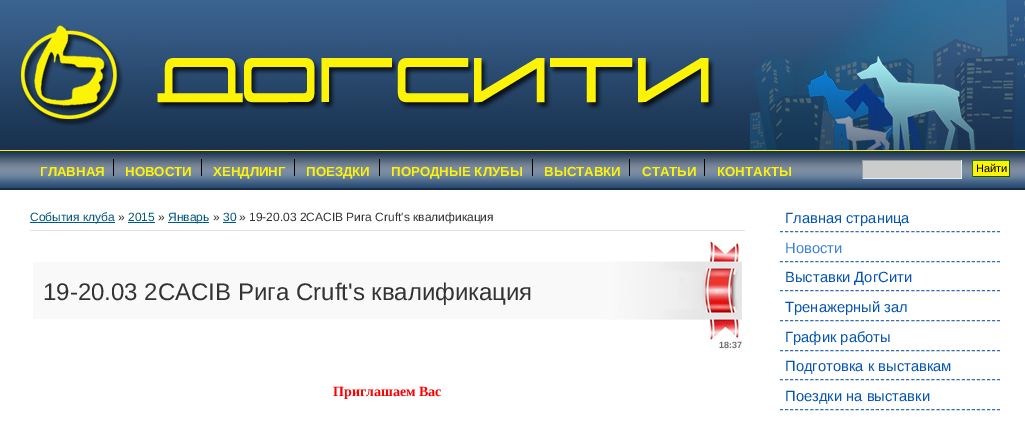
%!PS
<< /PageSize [1025 427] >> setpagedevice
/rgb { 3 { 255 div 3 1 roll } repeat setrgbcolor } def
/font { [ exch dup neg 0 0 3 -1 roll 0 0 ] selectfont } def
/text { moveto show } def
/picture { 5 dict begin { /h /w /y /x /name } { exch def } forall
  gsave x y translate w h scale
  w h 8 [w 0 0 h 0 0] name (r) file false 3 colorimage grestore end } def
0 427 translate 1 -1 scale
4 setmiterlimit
255 255 255 rgb
0 0 1025 427 rectfill
(img_01.rgb) 0 0 750 150 picture
(img_02.rgb) 20 25 695 101 picture
(img_03.rgb) 750 0 275 150 picture
(img_04.rgb) 0 150 1025 38 picture
22 45 67 rgb
0 188 1025 2 rectfill
0 0 0 rgb
113 159 1 17 rectfill
201 159 1 17 rectfill
294 159 1 17 rectfill
379 159 1 17 rectfill
532 159 1 17 rectfill
629 159 1 17 rectfill
704 159 1 17 rectfill
204 204 204 rgb
863 161 98 17 rectfill
147 160 165 rgb
862 160 100 1 rectfill
221 240 247 rgb
961 160 1 19 rectfill
862 178 100 1 rectfill
147 160 165 rgb
862 160 1 19 rectfill
252 243 7 rgb
973 161 36 15 rectfill
35 124 35 rgb
972 160 38 1 rectfill
23 83 23 rgb
1009 160 1 17 rectfill
972 176 38 1 rectfill
35 124 35 rgb
972 160 1 17 rectfill
0 88 133 rgb
30 222 85 1 rectfill
128 222 27 1 rectfill
168 222 41 1 rectfill
223 222 13 1 rectfill
226 226 226 rgb
30 230 715 1 rectfill
249 249 249 rgb
33 262 574 57 rectfill
(img_05.rgb) 607 241 135 99 picture
54 111 180 rgb
[3 2.05] 0 setdash
780 231.5 moveto 220 0 rlineto stroke
780 261.5 moveto 220 0 rlineto stroke
780 290.5 moveto 220 0 rlineto stroke
780 320.5 moveto 220 0 rlineto stroke
780 350.5 moveto 220 0 rlineto stroke
780 379.5 moveto 220 0 rlineto stroke
780 409.5 moveto 220 0 rlineto stroke
/LiberationSans-Bold 13.25 font
252 243 7 rgb
(ГЛАВНАЯ) 40 176 text
(НОВОСТИ) 125 176 text
(ХЕНДЛИНГ) 213 176 text
(ПОЕЗДКИ) 306 176 text
(ПОРОДНЫЕ КЛУБЫ) 391 176 text
(ВЫСТАВКИ) 544 176 text
(СТАТЬИ) 642 176 text
(КОНТАКТЫ) 717 176 text
/LiberationSans-Regular 11 font
0 0 0 rgb
(Найти) 976 172 text
/LiberationSans-Regular 12 font
0 88 133 rgb
(События клуба) 30 221 text
51 51 51 rgb
(») 118 221 text
0 88 133 rgb
(2015) 128 221 text
51 51 51 rgb
(») 158 221 text
0 88 133 rgb
(Январь) 168 221 text
51 51 51 rgb
(») 213 221 text
0 88 133 rgb
(30) 223 221 text
51 51 51 rgb
(» 19-20.03 2CACIB Рига Cruft's квалификация) 239 221 text
/LiberationSans-Regular 24 font
(19-20.03 2CACIB Рига Cruft's квалификация) 43 300 text
/LiberationSans-Bold 9 font
110 110 110 rgb
(18:37) 719 348 text
/LiberationSerif-Bold 14 font
255 0 0 rgb
(Приглашаем Вас) 333 396 text
/LiberationSans-Regular 14.75 font
5 84 178 rgb
(Главная страница) 785 223 text
57 132 216 rgb
(Новости) 785 253 text
5 84 178 rgb
(Выставки ДогСити) 785 282 text
(Тренажерный зал) 785 312 text
(График работы) 785 342 text
(Подготовка к выставкам) 785 371 text
(Поездки на выставки) 785 401 text
showpage
